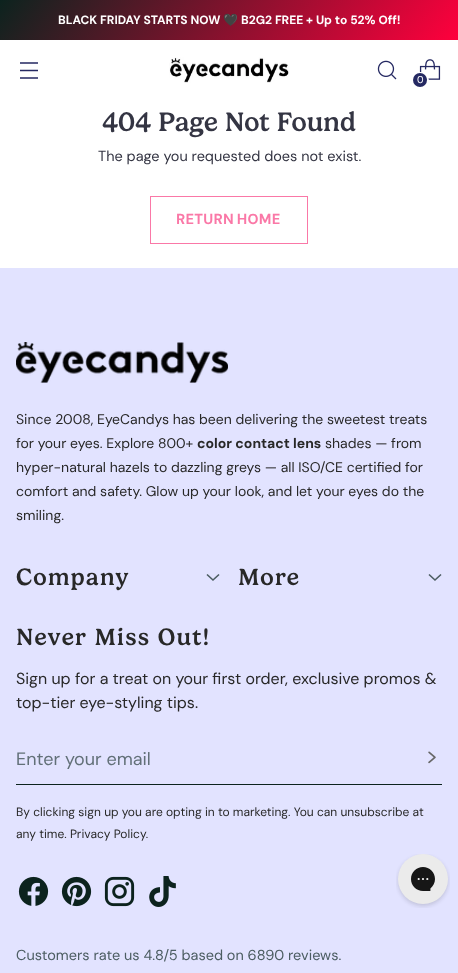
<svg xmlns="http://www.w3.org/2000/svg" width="458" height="973">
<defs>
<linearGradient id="g1" gradientUnits="userSpaceOnUse" x1="377" y1="140" x2="81" y2="-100"><stop offset="0" stop-color="#ff003d"/><stop offset="1" stop-color="#0c231e"/></linearGradient>
</defs>
<rect width="100%" height="100%" fill="#fff"/>
<rect width="458" height="40" fill="url(#g1)"/>
<text x="58" y="24" style="font-family:DM Sans;font-size:12px;font-weight:bold;fill:#fff">BLACK FRIDAY STARTS NOW</text>
<text x="223" y="24" style="font-family:Noto Color Emoji;font-size:12px;font-weight:bold;fill:#fff">🖤</text>
<text x="241" y="24" style="font-family:DM Sans;font-size:12px;font-weight:bold;fill:#fff">B2G2 FREE + Up to 52% Off!</text>
<path d="M20 70.5h18m-18-7.5h18m-18 15h18" fill="none" stroke="#252962" stroke-width="1.3"/>
<image x="169" y="57" width="120" height="26" href="media/1.png"/>
<image x="377" y="60" width="20" height="20" href="media/2.png"/>
<image x="419" y="59" width="22" height="21" href="media/3.png"/>
<circle cx="420.5" cy="80.5" r="7.5" fill="none" stroke="#fff" stroke-width="2"/>
<circle cx="420" cy="80" r="7" fill="#252962"/>
<text x="417" y="83" style="font-family:'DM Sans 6';font-size:10px;fill:#fff">0</text>
<text x="102" y="131" style="font-family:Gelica;font-size:27.25px;font-weight:500;fill:#343543">404 Page Not Found</text>
<text x="98" y="161" style="font-family:DM Sans;font-size:14.5px;fill:#343543">The page you requested does not exist.</text>
<rect x="150.5" y="196.5" width="157" height="47" fill="none" stroke="#fa78a7"/>
<text x="176" y="224" word-spacing="-1" style="font-family:'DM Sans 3';font-size:14.5px;font-weight:bold;letter-spacing:0.25px;fill:#fa78a7">RETURN HOME</text>
<rect y="268" width="458" height="705" fill="#e2e3ff"/>
<image x="16" y="342" width="212" height="41" href="media/4.png"/>
<text x="16" y="424" style="font-family:'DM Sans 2';font-size:14px;fill:#282828">Since 2008, EyeCandys has been delivering the sweetest treats</text>
<text x="16" y="448" style="font-family:'DM Sans 2';font-size:14px;fill:#282828">for your eyes. Explore 800+</text>
<text x="197" y="448" style="font-family:'DM Sans 2';font-size:14px;font-weight:bold;fill:#282828">color contact lens</text>
<text x="325" y="448" style="font-family:'DM Sans 2';font-size:14px;fill:#282828">shades — from</text>
<text x="16" y="472" style="font-family:'DM Sans 2';font-size:14px;fill:#282828">hyper-natural hazels to dazzling greys — all ISO/CE certified for</text>
<text x="16" y="496" style="font-family:'DM Sans 2';font-size:14px;fill:#282828">comfort and safety. Glow up your look, and let your eyes do the</text>
<text x="16" y="520" style="font-family:'DM Sans 2';font-size:14px;fill:#282828">smiling.</text>
<text x="16" y="585" style="font-family:Gelica;font-size:24px;font-weight:500;letter-spacing:1.25px;fill:#282828">Company</text>
<path d="M207 574.5l6 5.5l6-5.5" fill="none" stroke="#4c5d62" stroke-width="1.6"/>
<text x="238" y="585" style="font-family:Gelica;font-size:24px;font-weight:500;letter-spacing:1.25px;fill:#282828">More</text>
<path d="M429 574.5l6 5.5l6-5.5" fill="none" stroke="#4c5d62" stroke-width="1.6"/>
<text x="16" y="645" style="font-family:Gelica;font-size:24px;font-weight:500;letter-spacing:1.25px;fill:#282828">Never Miss Out!</text>
<text x="16" y="684" style="font-family:'DM Sans 3';font-size:16px;fill:#282828">Sign up for a treat on your first order, exclusive promos &amp;</text>
<text x="16" y="708" style="font-family:'DM Sans 3';font-size:16px;fill:#282828">top-tier eye-styling tips.</text>
<rect x="16" y="784" width="426" height="1" fill="#0c231e"/>
<text x="16" y="765" style="font-family:'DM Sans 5';font-size:18px;fill:#627078">Enter your email</text>
<image x="428" y="751" width="8" height="13" href="media/5.png"/>
<text x="16" y="816" style="font-family:'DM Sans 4';font-size:12px;fill:#282828">By clicking sign up you are opting in to marketing. You can unsubscribe at</text>
<text x="16" y="838" style="font-family:'DM Sans 4';font-size:12px;fill:#282828">any time. Privacy Policy.</text>
<image x="18" y="876" width="31" height="30" href="media/6.png"/>
<image x="61" y="876" width="31" height="31" href="media/7.png"/>
<image x="104" y="876" width="31" height="31" href="media/8.png"/>
<image x="149" y="876" width="27" height="31" href="media/9.png"/>
<text x="16" y="960" style="font-family:DM Sans;font-size:14.5px;fill:#4c5d62">Customers rate us 4.8/5 based on 6890 reviews.</text>
<image x="396" y="854" width="54" height="54" href="media/10.png"/>
</svg>
